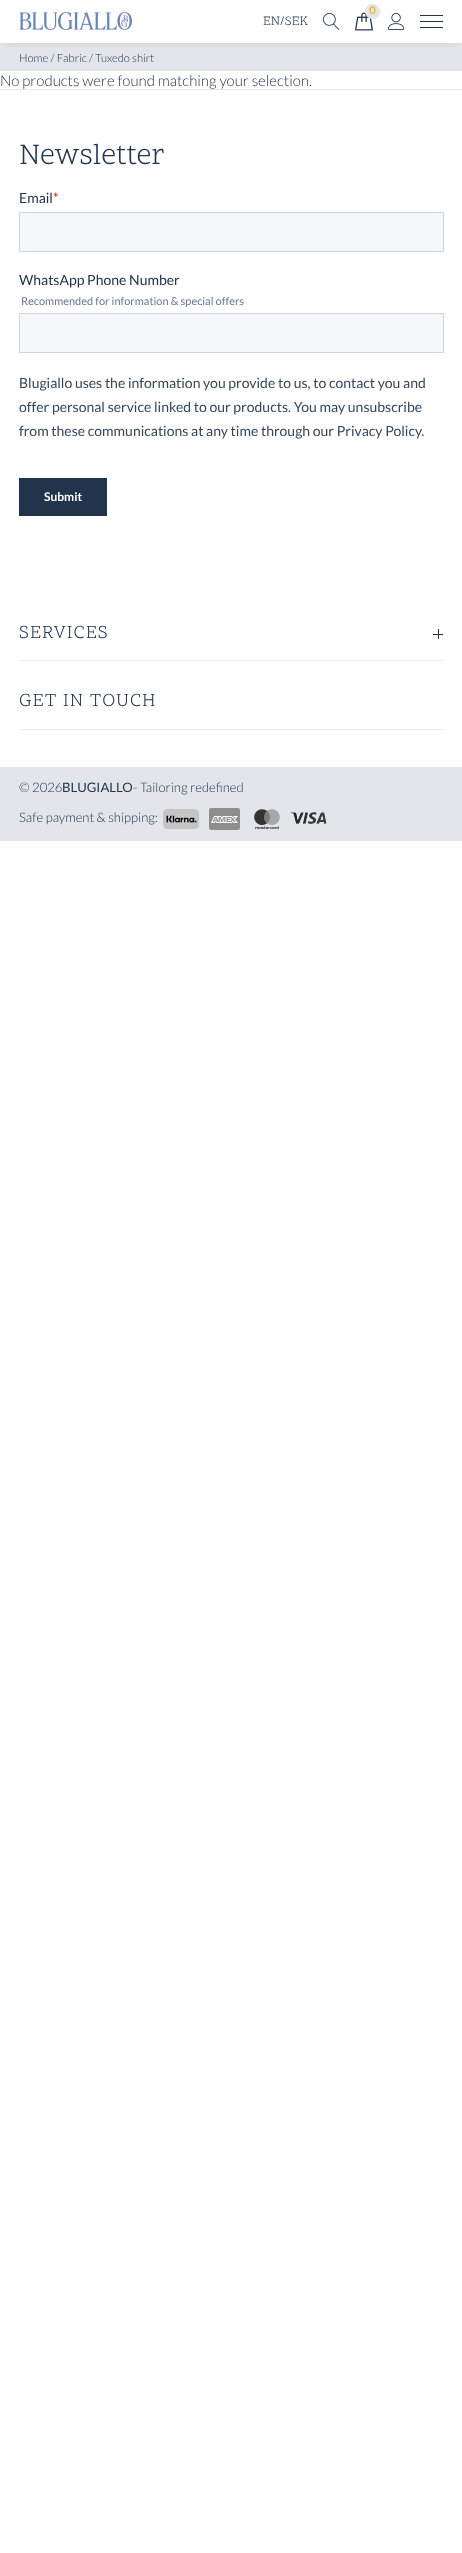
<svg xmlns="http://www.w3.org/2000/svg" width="462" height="2553">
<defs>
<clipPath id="clip1"><rect x="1" y="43" width="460" height="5"/></clipPath>
</defs>
<rect width="100%" height="100%" fill="#fff"/>
<rect y="43" width="462" height="28" fill="#e2e6ea"/>
<g clip-path="url(#clip1)">
<rect x="5" y="9" width="452" height="33" fill="#80808052" filter="blur(4px)"/>
</g>
<image x="19" y="12" width="113" height="18" href="media/1.png"/>
<image x="355" y="12" width="18" height="19" href="media/2.png"/>
<circle cx="372.5" cy="11.5" r="7.5" fill="#e2e6ea"/>
<text x="369" y="14" style="font-family:Scope One;font-size:11.25px;font-weight:bold;fill:#e2ac00">0</text>
<text x="263" y="25" style="font-family:Scope One;font-size:13.1px;fill:#21344b">EN/SEK</text>
<image x="323" y="13" width="17" height="17" href="media/3.png"/>
<image x="388" y="13" width="17" height="17" href="media/4.png"/>
<rect x="420" y="15" width="23" height="1" fill="#21344b"/>
<rect x="420" y="21" width="23" height="1" fill="#21344b"/>
<rect x="420" y="27" width="23" height="1" fill="#21344b"/>
<text x="19" y="62" style="font-family:Lato;font-size:11.25px;font-weight:300;fill:#21344b">Home / Fabric / Tuxedo shirt</text>
<text x="0" y="86" style="font-family:Lato;font-size:15px;font-weight:300;fill:#21344b">No products were found matching your selection.</text>
<rect y="89" width="462" height="1" fill="#e2e6ea"/>
<text x="19" y="164" style="font-family:Scope One;font-size:30px;fill:#21344b">Newsletter</text>
<image x="19" y="192" width="425" height="324" href="media/5.png"/>
<rect x="19" y="660" width="424" height="1" fill="#e9ecef"/>
<text x="19" y="638" style="font-family:Scope One;font-size:18.75px;letter-spacing:1px;fill:#21344b">SERVICES</text>
<rect x="433" y="634" width="10" height="1" fill="#21344b"/>
<rect x="438" y="629" width="1" height="10" fill="#21344b"/>
<rect x="19" y="729" width="424" height="1" fill="#e9ecef"/>
<text x="19" y="706" style="font-family:Scope One;font-size:18.75px;letter-spacing:1px;fill:#21344b">GET IN TOUCH</text>
<rect y="767" width="462" height="74" fill="#e2e6ea"/>
<text x="19" y="792" style="font-family:Lato;font-size:13.1px;font-weight:300;fill:#21344b">© 2026</text>
<text x="62" y="792" style="font-family:Lato;font-size:13.1px;fill:#21344b">BLUGIALLO</text>
<text x="133" y="792" style="font-family:Lato;font-size:13.1px;font-weight:300;fill:#21344b">- Tailoring redefined</text>
<text x="19" y="822" style="font-family:Lato;font-size:13.1px;font-weight:300;fill:#21344b">Safe payment &amp; shipping:</text>
<image x="163" y="809" width="36" height="20" href="media/6.png"/>
<image x="209" y="808" width="31" height="22" href="media/7.png"/>
<image x="254" y="809" width="26" height="21" href="media/8.png"/>
<image x="290" y="812" width="37" height="12" href="media/9.png"/>
</svg>
